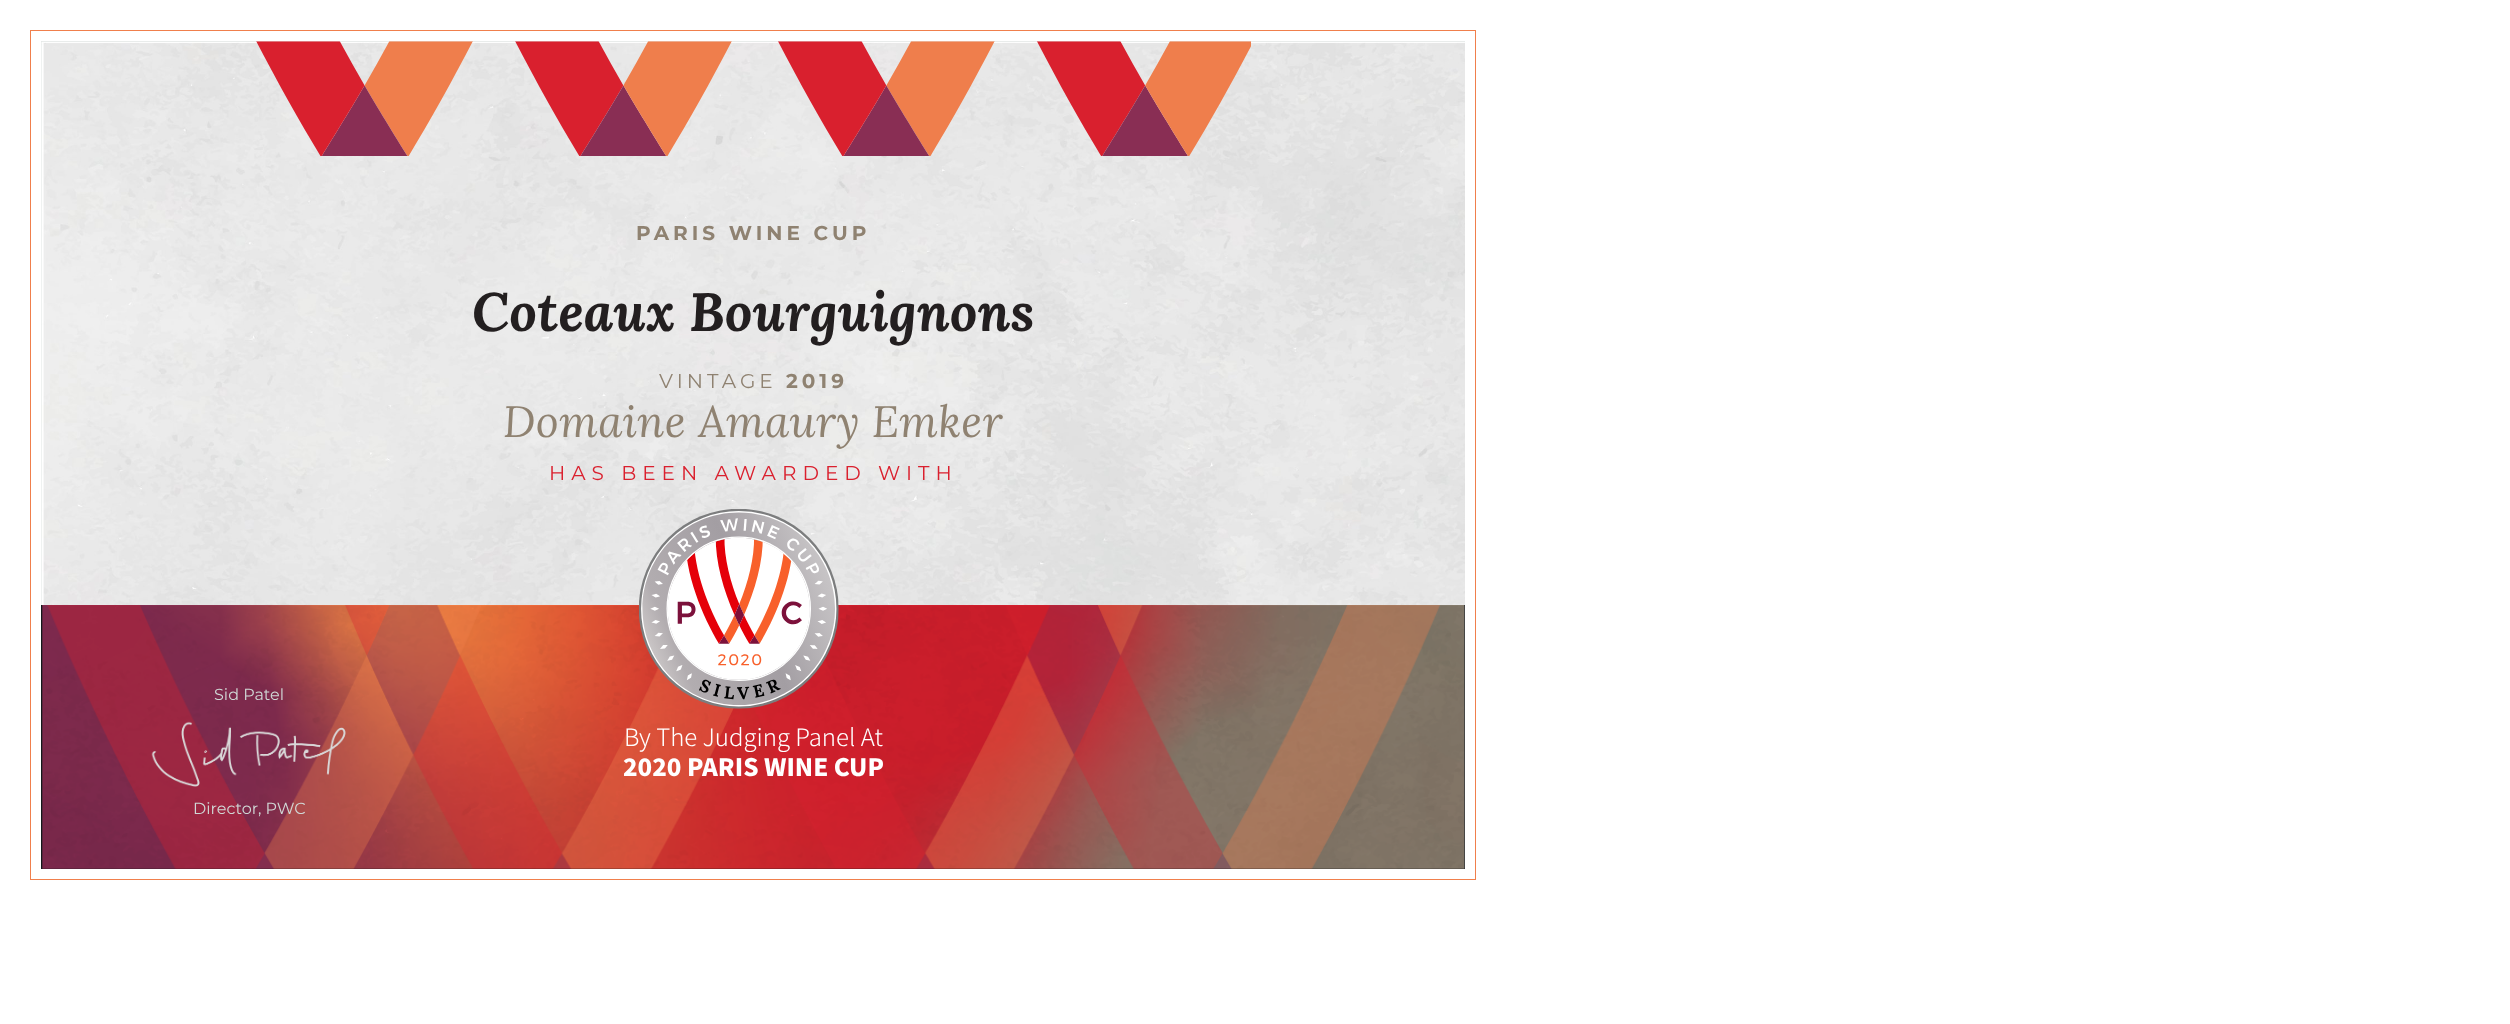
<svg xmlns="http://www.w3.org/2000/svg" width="2510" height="1024">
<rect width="100%" height="100%" fill="#fff"/>
<rect x="30.5" y="30.5" width="1445" height="849" fill="none" stroke="#f07f4c"/>
<rect x="41" y="41" width="1424" height="564" fill="#e0e5e4"/>
<image x="41" y="41" width="1424" height="564" href="media/1.png"/>
<image x="256" y="41" width="995" height="115" href="media/2.png"/>
<text x="636" y="240" style="font-family:Montserrat;font-size:20px;font-weight:bold;letter-spacing:4px;fill:#8f8271">PARIS WINE CUP</text>
<text x="472" y="331" style="font-family:Lora;font-size:54px;font-weight:bold;font-style:italic;fill:#231f20">Coteaux Bourguignons</text>
<text x="659" y="388" style="font-family:Montserrat;font-size:20px;letter-spacing:4px;fill:#8f8271">VINTAGE</text>
<text x="786" y="388" style="font-family:Montserrat;font-size:20px;font-weight:bold;letter-spacing:4px;fill:#8f8271">2019</text>
<text x="503" y="437" style="font-family:Lora;font-size:44px;font-style:italic;letter-spacing:0.4px;fill:#8f8271">Domaine Amaury Emker</text>
<text x="549" y="480" style="font-family:Montserrat;font-size:20px;letter-spacing:6px;fill:#da202e">HAS BEEN AWARDED WITH</text>
<rect x="41" y="605" width="1424" height="264" fill="#14191c"/>
<image x="42" y="605" width="1423" height="264" href="media/4.png"/>
<image x="639" y="509" width="200" height="200" href="media/3.png"/>
<text x="214" y="700" style="font-family:Montserrat;font-size:16px;fill:#d0d8d6">Sid Patel</text>
<image x="151" y="721" width="195" height="66" href="media/5.png"/>
<text x="193" y="814" style="font-family:Montserrat;font-size:16px;fill:#d0d8d6">Director, PWC</text>
<text x="624" y="746" style="font-family:Noto Sans SC;font-size:24px;font-weight:300;fill:#fff">By The Judging Panel At</text>
<text x="623" y="776" style="font-family:Noto Sans SC;font-size:24px;font-weight:900;fill:#fff">2020 PARIS WINE CUP</text>
</svg>
